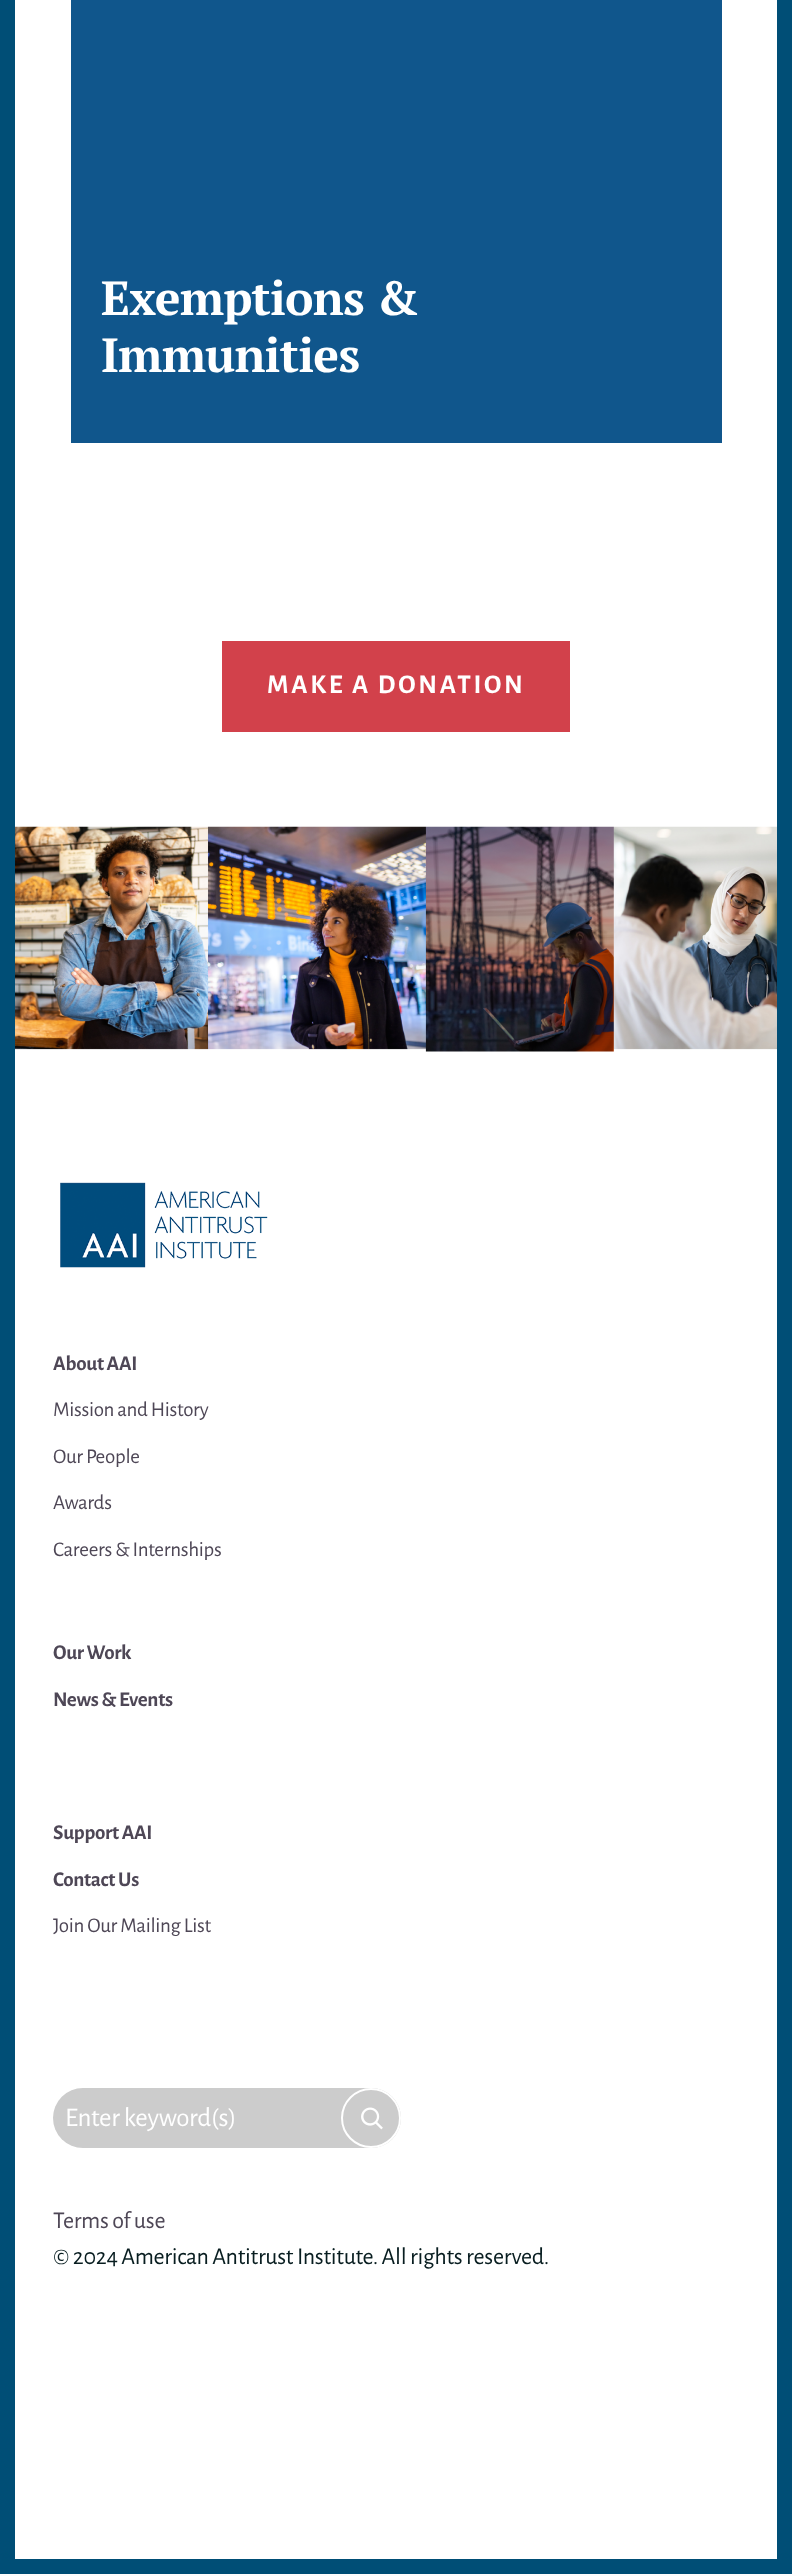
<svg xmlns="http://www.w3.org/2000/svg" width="792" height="2574">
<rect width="100%" height="100%" fill="#004e76"/>
<rect x="15" width="762" height="2559" fill="#fff"/>
<rect x="71" width="651" height="443" fill="#10568c"/>
<text x="101" y="315" style="font-family:PT Serif;font-size:48px;font-weight:bold;letter-spacing:-0.75px;fill:#fff">Exemptions &amp;</text>
<text x="101" y="372" style="font-family:PT Serif;font-size:48px;font-weight:bold;letter-spacing:-0.75px;fill:#fff">Immunities</text>
<rect x="222" y="641" width="348" height="91" fill="#d2414b"/>
<text x="267" y="693" style="font-family:Alegreya Sans;font-size:27px;font-weight:bold;letter-spacing:2.75px;fill:#fff">MAKE A DONATION</text>
<image x="15" y="826" width="762" height="226" href="media/1.png"/>
<image x="60" y="1182" width="208" height="86" href="media/2.png"/>
<text x="53" y="1370" style="font-family:Alegreya Sans;font-size:21px;font-weight:bold;letter-spacing:-0.3px;fill:#4e4756">About AAI</text>
<text x="53" y="1416" style="font-family:Alegreya Sans;font-size:21px;letter-spacing:-0.3px;fill:#4e4756">Mission and History</text>
<text x="53" y="1463" style="font-family:Alegreya Sans;font-size:21px;letter-spacing:-0.3px;fill:#4e4756">Our People</text>
<text x="53" y="1509" style="font-family:Alegreya Sans;font-size:21px;letter-spacing:-0.3px;fill:#4e4756">Awards</text>
<text x="53" y="1556" style="font-family:Alegreya Sans;font-size:21px;letter-spacing:-0.3px;fill:#4e4756">Careers &amp; Internships</text>
<text x="53" y="1659" style="font-family:Alegreya Sans;font-size:21px;font-weight:bold;letter-spacing:-0.3px;fill:#4e4756">Our Work</text>
<text x="53" y="1706" style="font-family:Alegreya Sans;font-size:21px;font-weight:bold;letter-spacing:-0.3px;fill:#4e4756">News &amp; Events</text>
<text x="53" y="1839" style="font-family:Alegreya Sans;font-size:21px;font-weight:bold;letter-spacing:-0.3px;fill:#4e4756">Support AAI</text>
<text x="53" y="1886" style="font-family:Alegreya Sans;font-size:21px;font-weight:bold;letter-spacing:-0.3px;fill:#4e4756">Contact Us</text>
<text x="53" y="1932" style="font-family:Alegreya Sans;font-size:21px;letter-spacing:-0.3px;fill:#4e4756">Join Our Mailing List</text>
<rect x="53" y="2088" width="348" height="60" rx="30" fill="#ccc"/>
<text x="65" y="2126" style="font-family:Alegreya Sans;font-size:27px;letter-spacing:-0.3px;fill:#fff">Enter keyword(s)</text>
<circle cx="371" cy="2118" r="29" fill="#ccc" stroke="#fff" stroke-width="2"/>
<image x="361" y="2107" width="22" height="23" href="media/3.png"/>
<text x="53" y="2228" style="font-family:Alegreya Sans;font-size:24px;letter-spacing:-0.3px;fill:#4e4756">Terms of use</text>
<text x="53" y="2264" style="font-family:Alegreya Sans;font-size:24px;letter-spacing:-0.3px;fill:#081d20">© 2024 American Antitrust Institute. All rights reserved.</text>
</svg>
